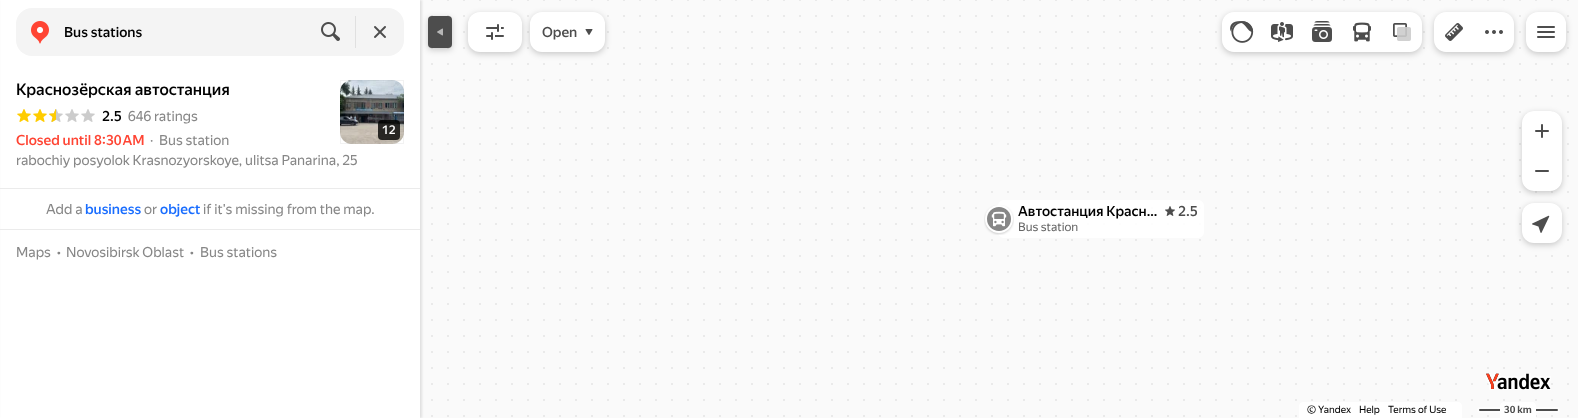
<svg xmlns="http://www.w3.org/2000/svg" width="1578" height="418">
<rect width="100%" height="100%" fill="#fff"/>
<image x="420" y="0" width="1158" height="418" href="media/1.png"/>
<rect x="2" width="420" height="418" fill="#0000001a" filter="blur(1px)"/>
<rect x="428" y="18" width="24" height="32" rx="4" fill="#00000033" filter="blur(3px)"/>
<rect x="1" width="419" height="418" fill="#fff"/>
<rect x="16" y="8" width="388" height="48" rx="16" fill="#f4f4f4"/>
<image x="31" y="21" width="18" height="23" href="media/2.png"/>
<text x="64" y="37" style="font-family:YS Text;font-size:14px;font-weight:500;fill:#000">Bus stations</text>
<image x="321" y="22" width="19" height="19" href="media/3.png"/>
<rect x="355" y="16" width="1" height="32" fill="#e0e0e0"/>
<image x="374" y="26" width="12" height="12" href="media/4.png"/>
<rect x="468" y="14" width="54" height="40" rx="12" fill="#00000033" filter="blur(3px)"/>
<rect x="468" y="12" width="54" height="40" rx="12" fill="#fff"/>
<image x="486" y="24" width="18" height="16" href="media/5.png"/>
<rect x="530" y="14" width="75" height="40" rx="12" fill="#00000033" filter="blur(3px)"/>
<rect x="530" y="12" width="75" height="40" rx="12" fill="#fff"/>
<text x="542" y="37" style="font-family:YS Text;font-size:14px;font-weight:500;fill:#4d4d4d">Open</text>
<image x="585" y="29" width="8" height="6" href="media/6.png"/>
<rect x="1222" y="14" width="200" height="40" rx="12" fill="#00000033" filter="blur(3px)"/>
<path d="M1234 12h28v40h-28c-6.5 0-12-5.5-12-12v-16c0-6.5 5.5-12 12-12z" fill="#fff"/>
<image x="1230" y="21" width="24" height="22" href="media/7.png"/>
<rect x="1262" y="12" width="120" height="40" fill="#fff"/>
<image x="1271" y="22" width="22" height="20" href="media/8.png"/>
<path d="M1382 12h28c6.5 0 12 5.5 12 12v16c0 6.5-5.5 12-12 12h-28z" fill="#fff"/>
<image x="1393" y="23" width="18" height="18" href="media/9.png"/>
<image x="1312" y="21" width="20" height="21" href="media/10.png"/>
<image x="1353" y="22" width="18" height="20" href="media/11.png"/>
<rect x="1434" y="14" width="80" height="40" rx="12" fill="#00000033" filter="blur(3px)"/>
<path d="M1446 12h28v40h-28c-6.5 0-12-5.5-12-12v-16c0-6.5 5.5-12 12-12z" fill="#fff"/>
<image x="1445" y="23" width="18" height="18" href="media/12.png"/>
<path d="M1474 12h28c6.5 0 12 5.5 12 12v16c0 6.5-5.5 12-12 12h-28z" fill="#fff"/>
<image x="1485" y="30" width="18" height="4" href="media/13.png"/>
<rect x="1526" y="14" width="40" height="40" rx="12" fill="#00000033" filter="blur(3px)"/>
<rect x="1526" y="12" width="40" height="40" rx="12" fill="#fff"/>
<image x="1537" y="26" width="18" height="12" href="media/14.png"/>
<rect x="1522" y="113" width="40" height="80" rx="12" fill="#00000033" filter="blur(3px)"/>
<path d="M1534 111h16c6.5 0 12 5.5 12 12v28h-40v-28c0-6.5 5.5-12 12-12z" fill="#fff"/>
<image x="1535" y="124" width="14" height="14" href="media/15.png"/>
<path d="M1522 151h40v28c0 6.5-5.5 12-12 12h-16c-6.5 0-12-5.5-12-12z" fill="#fff"/>
<image x="1535" y="170" width="14" height="2" href="media/16.png"/>
<rect x="1522" y="205" width="40" height="40" rx="12" fill="#00000033" filter="blur(3px)"/>
<rect x="1522" y="203" width="40" height="40" rx="12" fill="#fff"/>
<image x="1532" y="215" width="18" height="18" href="media/17.png"/>
<rect x="428" y="16" width="24" height="32" rx="4" fill="#4d4d4d"/>
<image x="437" y="28" width="6" height="8" href="media/18.png"/>
<rect y="188" width="420" height="1" fill="#ebebeb"/>
<text x="16" y="95" style="font-family:YS Text;font-size:16px;font-weight:500;fill:#000">Краснозёрская автостанция</text>
<image x="17" y="109" width="14" height="13" href="media/19.png"/>
<image x="33" y="109" width="14" height="13" href="media/19.png"/>
<image x="49" y="109" width="14" height="13" href="media/20.png"/>
<image x="65" y="109" width="14" height="13" href="media/21.png"/>
<image x="81" y="109" width="14" height="13" href="media/21.png"/>
<text x="102" y="121" style="font-family:YS Text;font-size:14px;font-weight:500;fill:#000">2.5</text>
<text x="128" y="121" style="font-family:YS Text;font-size:14px;fill:#878787">646 ratings</text>
<image x="340" y="80" width="64" height="64" href="media/22.png"/>
<rect x="340.5" y="80.5" width="63" height="63" fill="none" stroke="#0000000d"/>
<rect x="378" y="120" width="22" height="20" rx="4" fill="#000000cc"/>
<text x="382" y="134" style="font-family:YS Text;font-size:12px;font-weight:500;fill:#fff">12</text>
<text x="16" y="145" style="font-family:YS Text;font-size:14px;font-weight:500;fill:#f43">Closed until 8:30 AM</text>
<text x="150" y="145" style="font-family:YS Text;font-size:14px;fill:#878787">·</text>
<text x="159" y="145" style="font-family:YS Text;font-size:14px;fill:#878787">Bus station</text>
<text x="16" y="165" style="font-family:YS Text;font-size:14px;fill:#878787">rabochiy posyolok Krasnozyorskoye, ulitsa Panarina, 25</text>
<text x="46" y="214" style="font-family:YS Text;font-size:14px;fill:#878787">Add a</text>
<text x="85" y="214" style="font-family:YS Text;font-size:14px;font-weight:500;fill:#196dff">business</text>
<text x="144" y="214" style="font-family:YS Text;font-size:14px;fill:#878787">or</text>
<text x="160" y="214" style="font-family:YS Text;font-size:14px;font-weight:500;fill:#196dff">object</text>
<text x="203" y="214" style="font-family:YS Text;font-size:14px;fill:#878787">if it's missing from the map.</text>
<rect y="229" width="420" height="1" fill="#ebebeb"/>
<text x="16" y="257" style="font-family:YS Text;font-size:14px;fill:#878787">Maps</text>
<text x="57" y="257" style="font-family:YS Text;font-size:14px;fill:#878787">•</text>
<text x="66" y="257" style="font-family:YS Text;font-size:14px;fill:#878787">Novosibirsk Oblast</text>
<text x="190" y="257" style="font-family:YS Text;font-size:14px;fill:#878787">•</text>
<text x="200" y="257" style="font-family:YS Text;font-size:14px;fill:#878787">Bus stations</text>
<image x="1486" y="373" width="65" height="17" href="media/23.png"/>
<path d="M1303 402h155c2 0 4 2 4 4v12h-163v-12c0-2 2-4 4-4z" fill="#fff"/>
<text x="1307" y="413" style="font-family:YS Text;font-size:10px;fill:#000">© Yandex</text>
<text x="1359" y="413" style="font-family:YS Text;font-size:10px;fill:#000">Help</text>
<text x="1388" y="413" style="font-family:YS Text;font-size:10px;fill:#000">Terms of Use</text>
<rect x="1477" y="407" width="83" height="6" rx="3" fill="#fdfdfd"/>
<rect x="1479" y="409" width="79" height="2" rx="1" fill="#4d4d4d"/>
<path d="M1504 402h28c2 0 4 2 4 4v12h-36v-12c0-2 2-4 4-4z" fill="#fff"/>
<text x="1504" y="413" style="font-family:YS Text;font-size:10px;font-weight:bold;fill:#4d4d4d">30 km</text>
<path d="M1004 200h12v38h-12c-3.5 0-6-2.5-6-6v-26c0-3.5 2.5-6 6-6z" fill="#ffffffe6"/>
<image x="984" y="205" width="30" height="30" href="media/24.png"/>
<image x="991" y="211" width="16" height="16" href="media/25.png"/>
<path d="M1016 200h182c3.5 0 6 2.5 6 6v26c0 3.5-2.5 6-6 6h-182z" fill="#ffffffe6"/>
<text x="1018" y="216" style="font-family:YS Text;font-size:14px;font-weight:500;fill:#000">Автостанция Красн…</text>
<image x="1165" y="206" width="10" height="10" href="media/26.png"/>
<text x="1178" y="216" style="font-family:YS Text;font-size:14px;font-weight:500;fill:#4d4d4d">2.5</text>
<text x="1018" y="231" style="font-family:YS Text;font-size:12px;fill:#666">Bus station</text>
</svg>
